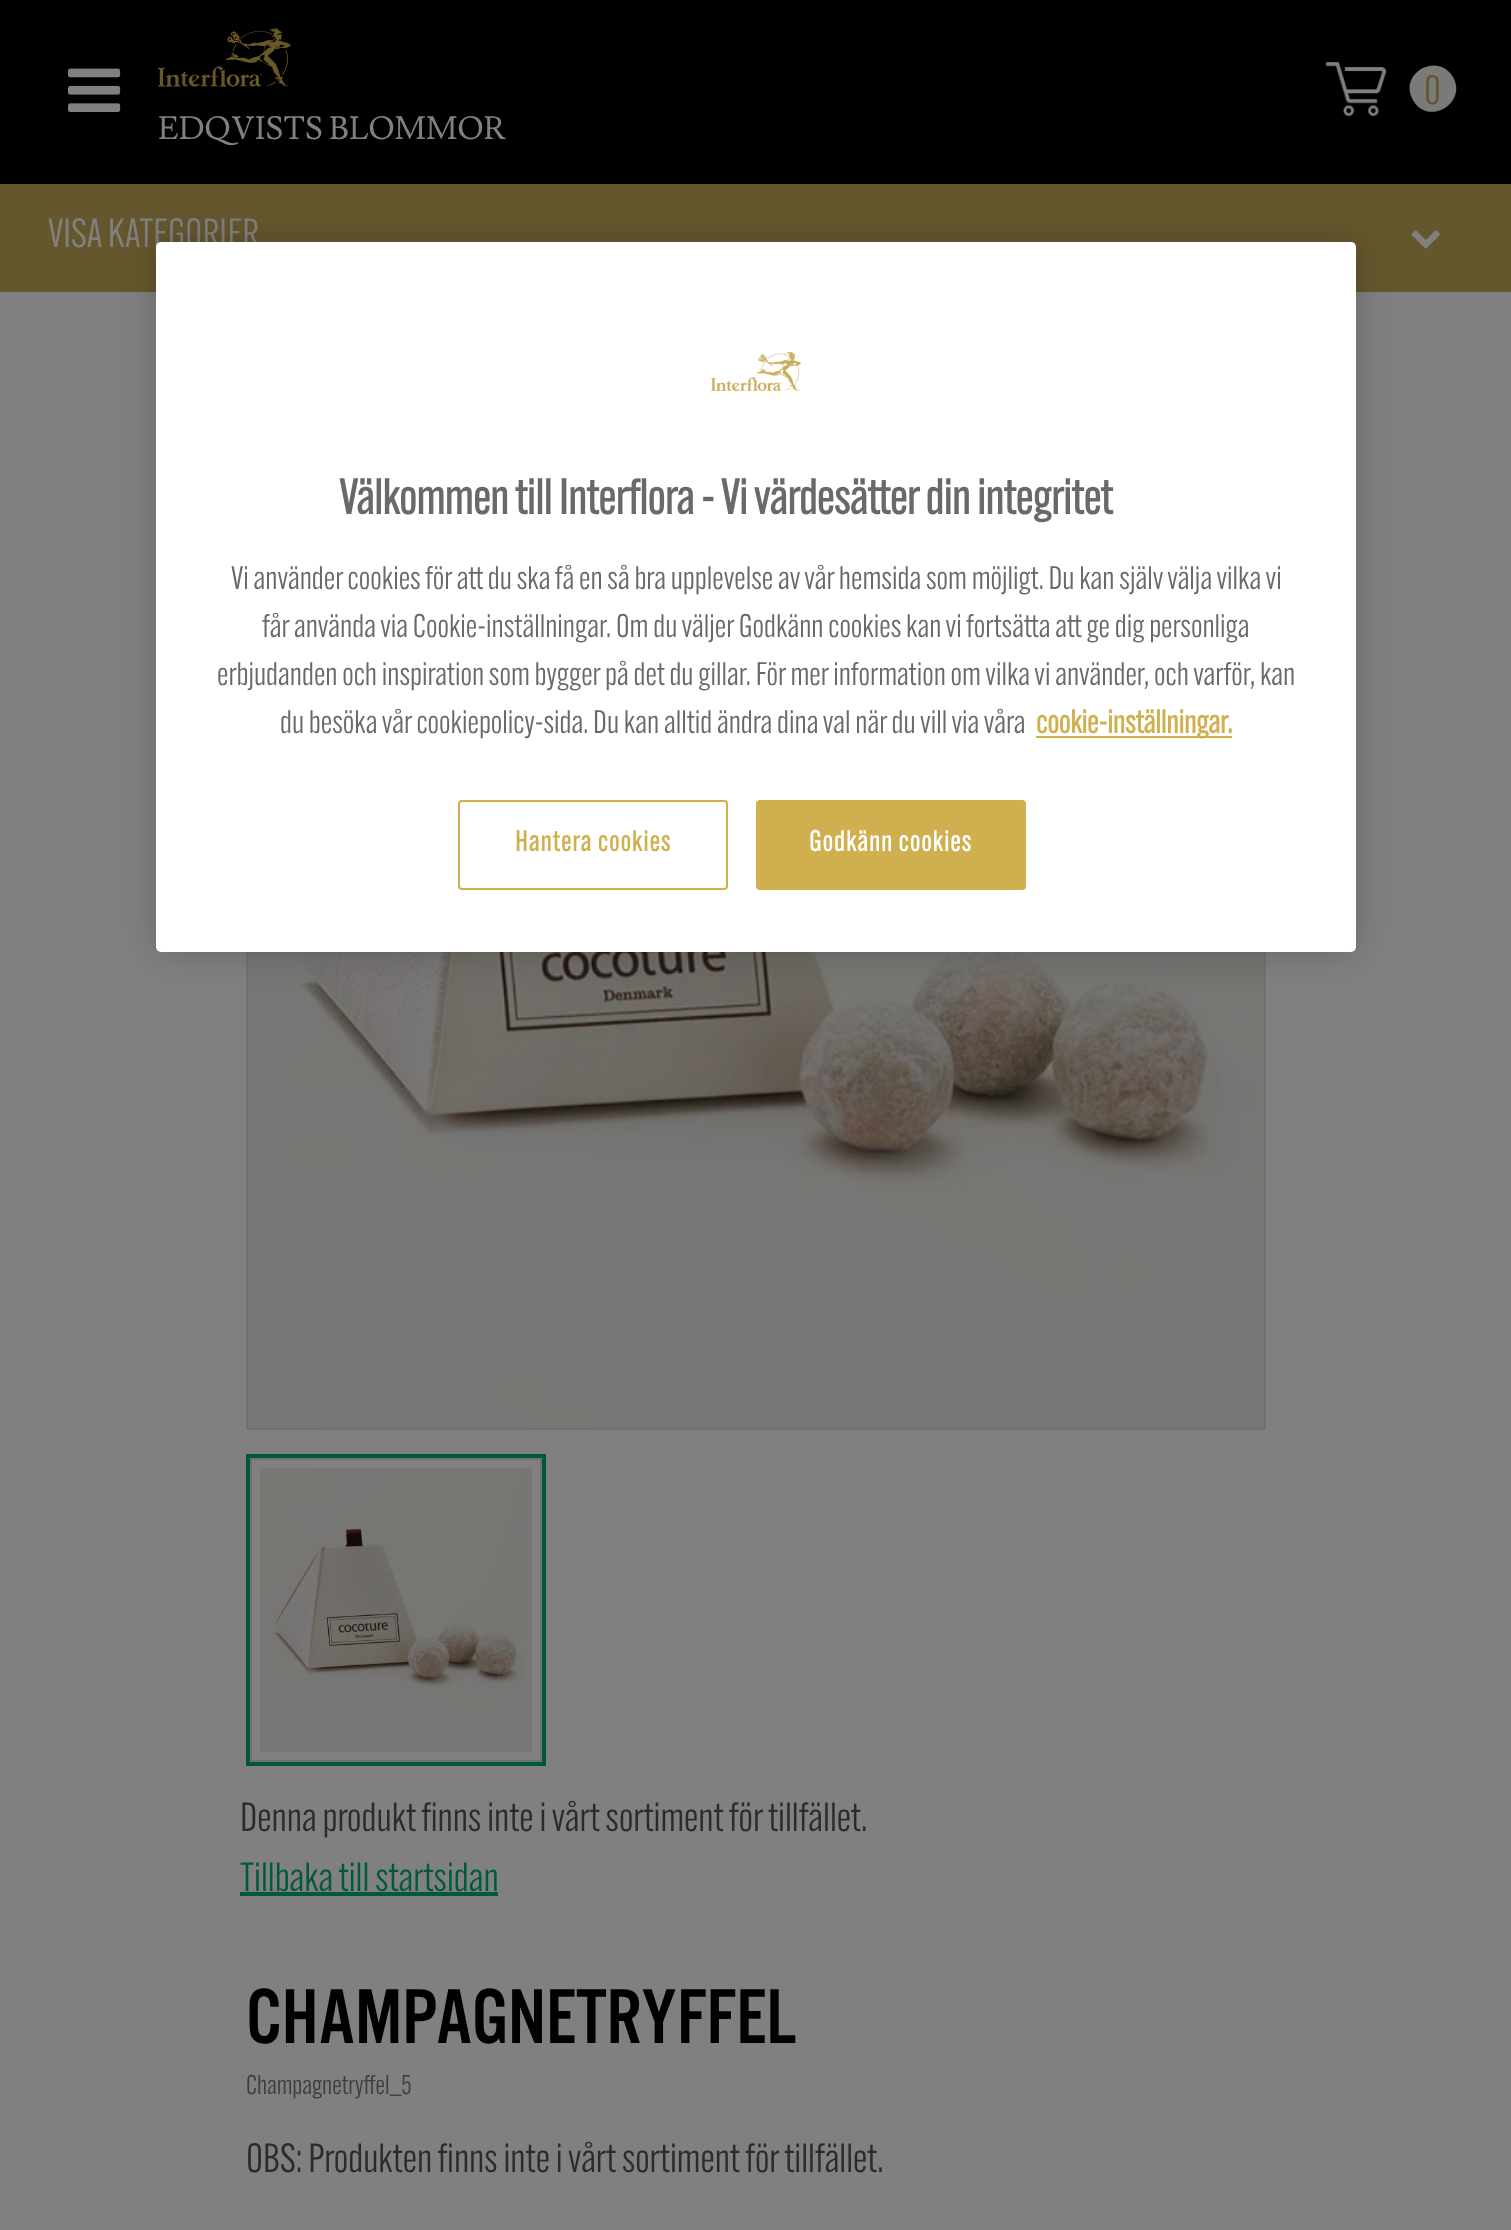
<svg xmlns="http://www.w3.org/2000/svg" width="1511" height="2230">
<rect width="100%" height="100%" fill="#808080"/>
<rect width="1511" height="184" fill="#000"/>
<image x="68" y="68" width="53" height="44" href="media/1.png"/>
<image x="1325" y="62" width="62" height="55" href="media/2.png"/>
<path d="M1453 77c15 26-25 50-40 23c-15-26 24-49 40-23z" fill="#7a7a79"/>
<text x="1424" y="104" style="font-family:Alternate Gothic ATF;font-size:40px;fill:#65572d">0</text>
<image x="158" y="28" width="133" height="59" href="media/3.png"/>
<text x="158" y="139" style="font-family:Lusitana;font-size:32px;fill:#808080">EDQVISTS BLOMMOR</text>
<rect y="184" width="1511" height="108" fill="#65572d"/>
<text x="48" y="247" style="font-family:Alternate Gothic ATF;font-size:40px;fill:#808080">VISA KATEGORIER</text>
<image x="1411" y="230" width="29" height="19" href="media/4.png"/>
<rect x="247" y="365" width="1018" height="1064" fill="none" stroke="#6f7173" stroke-width="2"/>
<image x="248" y="952" width="1016" height="476" href="media/5.png"/>
<rect x="248" y="1456" width="296" height="308" fill="none" stroke="#00593d" stroke-width="4"/>
<rect x="251" y="1459" width="290" height="302" fill="none" stroke="#6f7173" stroke-width="2"/>
<image x="260" y="1468" width="272" height="284" href="media/6.png"/>
<text x="240" y="1831" style="font-family:Alternate Gothic ATF;font-size:40px;fill:#2b2b2b">Denna produkt finns inte i vårt sortiment för tillfället.</text>
<text x="240" y="1891" style="font-family:Alternate Gothic ATF;font-size:40px;fill:#00593d">Tillbaka till startsidan</text>
<rect x="240" y="1892" width="258" height="4" fill="#00593d"/>
<text x="246" y="2043" style="font-family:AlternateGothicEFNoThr;font-size:80.75px;fill:#000">CHAMPAGNETRYFFEL</text>
<text x="246" y="2094" style="font-family:Alternate Gothic ATF;font-size:26.5px;fill:#3d3e3b">Champagnetryffel_5</text>
<text x="246" y="2172" style="font-family:Alternate Gothic ATF;font-size:40px;fill:#2b2b2b">OBS: Produkten finns inte i vårt sortiment för tillfället.</text>
<rect x="156" y="242" width="1200" height="710" rx="5" fill="#00000033" filter="blur(18px)"/>
<rect x="156" y="242" width="1200" height="710" rx="5" fill="#fff"/>
<image x="710" y="351" width="92" height="40" href="media/7.png"/>
<text x="339" y="514" style="font-family:Alternate Gothic ATF;font-size:48px;font-weight:bold;fill:#696969">Välkommen till Interflora - Vi värdesätter din integritet</text>
<text x="231" y="589" style="font-family:Alternate Gothic ATF;font-size:32px;fill:#696969">Vi använder cookies för att du ska få en så bra upplevelse av vår hemsida som möjligt. Du kan själv välja vilka vi</text>
<text x="262" y="637" style="font-family:Alternate Gothic ATF;font-size:32px;fill:#696969">får använda via Cookie-inställningar. Om du väljer Godkänn cookies kan vi fortsätta att ge dig personliga</text>
<text x="217" y="685" style="font-family:Alternate Gothic ATF;font-size:32px;fill:#696969">erbjudanden och inspiration som bygger på det du gillar. För mer information om vilka vi använder, och varför, kan</text>
<text x="280" y="733" style="font-family:Alternate Gothic ATF;font-size:32px;fill:#696969">du besöka vår cookiepolicy-sida. Du kan alltid ändra dina val när du vill via våra</text>
<rect x="1036" y="736" width="196" height="2" fill="#d0b04e"/>
<text x="1036" y="733" style="font-family:Alternate Gothic ATF;font-size:32px;font-weight:bold;fill:#d0b04e">cookie-inställningar.</text>
<rect x="459" y="801" width="268" height="88" rx="3" fill="none" stroke="#d0b04e" stroke-width="2"/>
<text x="515" y="851" style="font-family:Alternate Gothic ATF;font-size:28px;font-weight:bold;letter-spacing:1.4px;fill:#d0b04e">Hantera cookies</text>
<rect x="757" y="801" width="268" height="88" rx="3" fill="#d0b04e" stroke="#d0b04e" stroke-width="2"/>
<text x="809" y="851" style="font-family:Alternate Gothic ATF;font-size:28px;font-weight:bold;letter-spacing:1.4px;fill:#fff">Godkänn cookies</text>
</svg>
